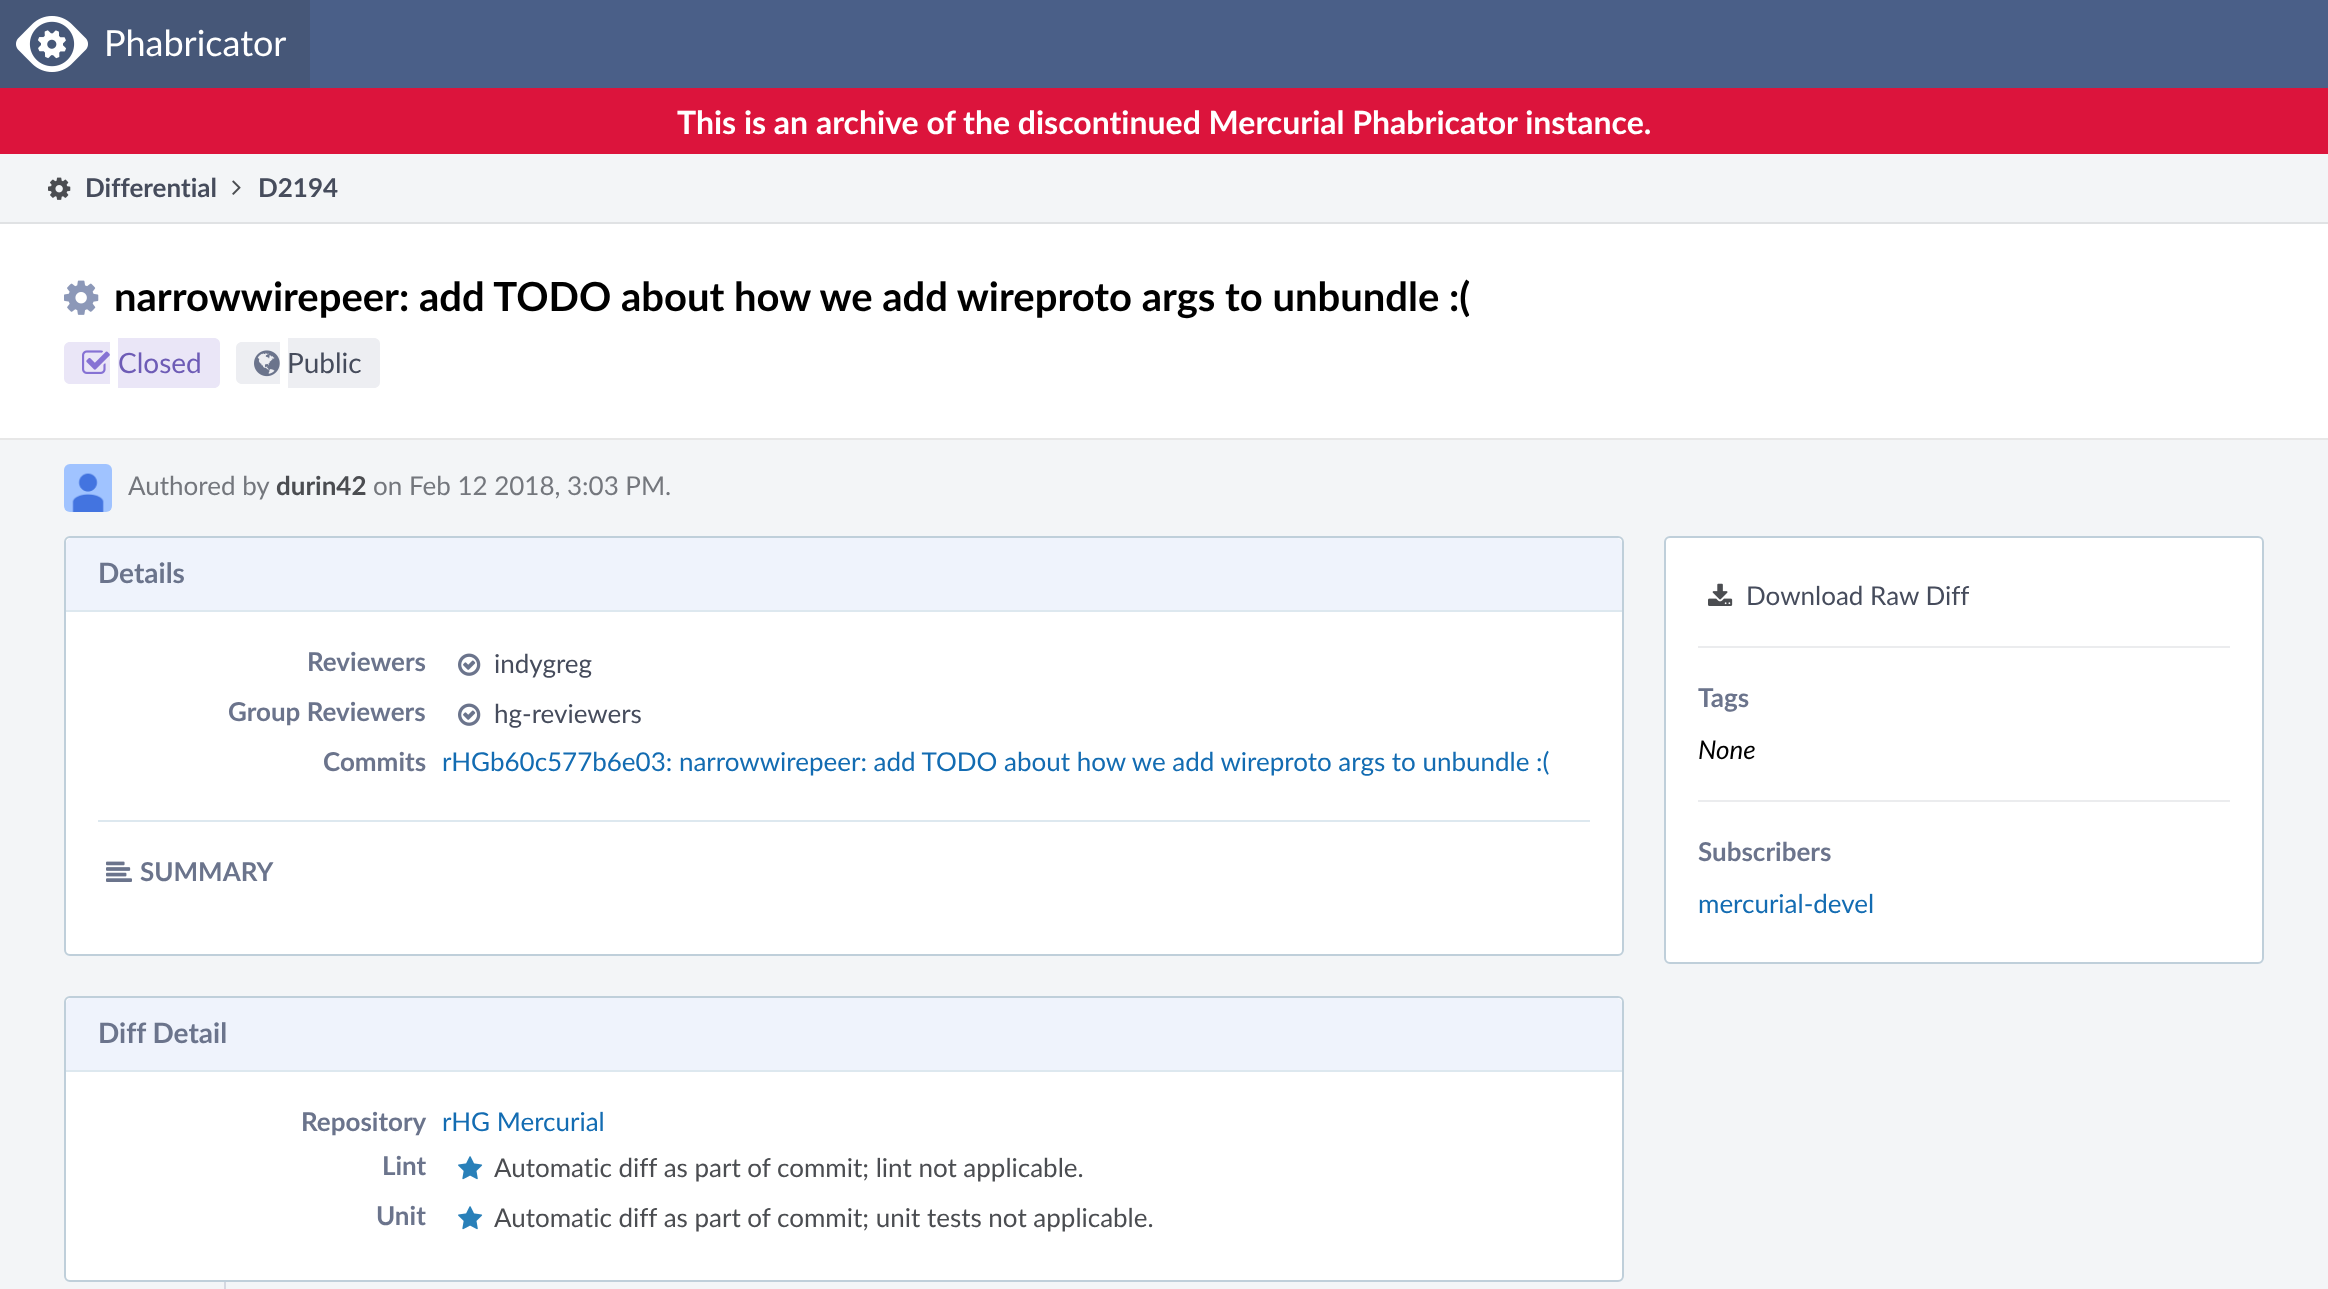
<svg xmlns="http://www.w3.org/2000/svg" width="2328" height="1289">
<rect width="100%" height="100%" fill="#f3f5f7"/>
<rect x="310" width="2018" height="88" fill="#4a5f88"/>
<rect width="310" height="88" fill="#465778"/>
<image x="16" y="16" width="72" height="56" href="media/1.png"/>
<text x="104" y="56" style="font-family:Lato;font-size:36px;fill:#fff">Phabricator</text>
<rect y="88" width="2328" height="66" fill="#dc143c"/>
<text x="677" y="134" style="font-family:Lato;font-size:32px;font-weight:bold;fill:#fff">This is an archive of the discontinued Mercurial Phabricator instance.</text>
<rect y="222" width="2328" height="2" fill="#e0e2e4"/>
<image x="48" y="177" width="23" height="23" href="media/2.png"/>
<text x="85" y="197" style="font-family:Lato;font-size:26px;font-weight:bold;fill:#464c5c">Differential</text>
<image x="232" y="180" width="9" height="15" href="media/3.png"/>
<text x="258" y="197" style="font-family:Lato;font-size:26px;font-weight:bold;fill:#464c5c">D2194</text>
<rect y="224" width="2328" height="214" fill="#fff"/>
<rect y="438" width="2328" height="2" fill="#e7e7e7"/>
<image x="64" y="280" width="35" height="35" href="media/4.png"/>
<text x="114" y="311" style="font-family:Lato;font-size:40px;font-weight:bold;fill:#000">narrowwirepeer: add TODO about how we add wireproto args to unbundle :(</text>
<path d="M70 342h40v42h-40c-3.5 0-6-2.5-6-6v-30c0-3.5 2.5-6 6-6z" fill="#eae6f7"/>
<path d="M118 338h96c3.5 0 6 2.5 6 6v38c0 3.5-2.5 6-6 6h-96z" fill="#eae6f7"/>
<image x="82" y="350" width="28" height="24" href="media/5.png"/>
<text x="118" y="373" style="font-family:Lato;font-size:28px;fill:#6e5cb6">Closed</text>
<path d="M242 342h38v42h-38c-3.5 0-6-2.5-6-6v-30c0-3.5 2.5-6 6-6z" fill="#edeef2"/>
<path d="M288 338h86c3.5 0 6 2.5 6 6v38c0 3.5-2.5 6-6 6h-86z" fill="#edeef2"/>
<image x="254" y="350" width="26" height="27" href="media/6.png"/>
<text x="287" y="373" style="font-family:Lato;font-size:28px;fill:#464c5c">Public</text>
<image x="64" y="464" width="48" height="48" href="media/7.png"/>
<text x="128" y="495" style="font-family:Lato;font-size:26px;fill:#74777d">Authored by</text>
<text x="276" y="495" style="font-family:Lato;font-size:26px;font-weight:bold;fill:#4b4d51">durin42</text>
<text x="373" y="495" style="font-family:Lato;font-size:26px;fill:#74777d">on Feb 12 2018, 3:03 PM.</text>
<rect x="65" y="537" width="1558" height="418" rx="5" fill="#fff" stroke="#bfcfda" stroke-width="2"/>
<path d="M72 538h1544c3.5 0 6 2.5 6 6v68h-1556v-68c0-3.5 2.5-6 6-6z" fill="#eff3fc"/>
<rect x="66" y="610" width="1556" height="2" fill="#dde8ef"/>
<text x="98" y="583" style="font-family:Lato;font-size:28px;font-weight:bold;fill:#6b748c">Details</text>
<text x="307" y="671" style="font-family:Lato;font-size:26px;font-weight:bold;fill:#6b748c">Reviewers</text>
<image x="458" y="653" width="23" height="23" href="media/8.png"/>
<text x="494" y="673" style="font-family:Lato;font-size:26px;fill:#464c5c">indygreg</text>
<text x="228" y="721" style="font-family:Lato;font-size:26px;font-weight:bold;fill:#6b748c">Group Reviewers</text>
<image x="458" y="703" width="23" height="23" href="media/8.png"/>
<text x="494" y="723" style="font-family:Lato;font-size:26px;fill:#464c5c">hg-reviewers</text>
<text x="323" y="771" style="font-family:Lato;font-size:26px;font-weight:bold;fill:#6b748c">Commits</text>
<text x="442" y="771" style="font-family:Lato;font-size:26px;fill:#136cb2">rHGb60c577b6e03: narrowwirepeer: add TODO about how we add wireproto args to unbundle :(</text>
<rect x="98" y="820" width="1492" height="2" fill="#dde8ef"/>
<image x="106" y="861" width="26" height="21" href="media/9.png"/>
<text x="140" y="881" style="font-family:Lato;font-size:26px;font-weight:bold;fill:#6b748c">SUMMARY</text>
<rect x="65" y="997" width="1558" height="284" rx="5" fill="#fff" stroke="#bfcfda" stroke-width="2"/>
<path d="M72 998h1544c3.5 0 6 2.5 6 6v68h-1556v-68c0-3.5 2.5-6 6-6z" fill="#eff3fc"/>
<rect x="66" y="1070" width="1556" height="2" fill="#dde8ef"/>
<text x="98" y="1043" style="font-family:Lato;font-size:28px;font-weight:bold;fill:#6b748c">Diff Detail</text>
<text x="301" y="1131" style="font-family:Lato;font-size:26px;font-weight:bold;fill:#6b748c">Repository</text>
<text x="442" y="1131" style="font-family:Lato;font-size:26px;fill:#136cb2">rHG Mercurial</text>
<text x="382" y="1175" style="font-family:Lato;font-size:26px;font-weight:bold;fill:#6b748c">Lint</text>
<image x="458" y="1156" width="25" height="24" href="media/10.png"/>
<text x="494" y="1177" style="font-family:Lato;font-size:26px;fill:#4b4d51">Automatic diff as part of commit; lint not applicable.</text>
<text x="376" y="1225" style="font-family:Lato;font-size:26px;font-weight:bold;fill:#6b748c">Unit</text>
<image x="458" y="1206" width="25" height="24" href="media/10.png"/>
<text x="494" y="1227" style="font-family:Lato;font-size:26px;fill:#4b4d51">Automatic diff as part of commit; unit tests not applicable.</text>
<rect x="224" y="1282" width="2" height="7" fill="#d5d8e1"/>
<rect x="1665" y="537" width="598" height="426" rx="5" fill="#fff" stroke="#bfcfda" stroke-width="2"/>
<image x="1708" y="583" width="25" height="23" href="media/11.png"/>
<text x="1746" y="605" style="font-family:Lato;font-size:26px;fill:#464c5c">Download Raw Diff</text>
<rect x="1698" y="646" width="532" height="2" fill="#ebecee"/>
<text x="1698" y="707" style="font-family:Lato;font-size:26px;font-weight:bold;fill:#6b748c">Tags</text>
<text x="1698" y="759" style="font-family:Lato;font-size:26px;font-style:italic;fill:#000">None</text>
<rect x="1698" y="800" width="532" height="2" fill="#ebecee"/>
<text x="1698" y="861" style="font-family:Lato;font-size:26px;font-weight:bold;fill:#6b748c">Subscribers</text>
<text x="1698" y="913" style="font-family:Lato;font-size:26px;fill:#136cb2">mercurial-devel</text>
</svg>
